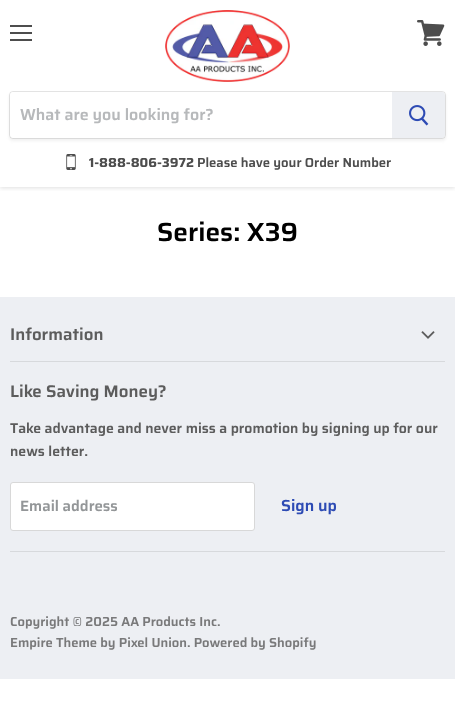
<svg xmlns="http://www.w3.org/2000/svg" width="455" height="714">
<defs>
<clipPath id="clip1"><rect x="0" y="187" width="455" height="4"/></clipPath>
</defs>
<rect width="100%" height="100%" fill="#fff"/>
<g clip-path="url(#clip1)">
<rect y="1" width="455" height="187" fill="#7f7f7f40" filter="blur(2px)"/>
</g>
<rect x="10" y="25" width="22" height="2" fill="#4d4d4d"/>
<rect x="10" y="32" width="22" height="2" fill="#4d4d4d"/>
<rect x="10" y="39" width="22" height="2" fill="#4d4d4d"/>
<image x="417" y="20" width="28" height="26" href="media/1.png"/>
<image x="165" y="10" width="125" height="72" href="media/2.png"/>
<rect x="9" y="93" width="437" height="48" rx="4" fill="#7f7f7f1c" filter="blur(1.5px)"/>
<rect x="9.5" y="91.5" width="436" height="47" rx="3.5" fill="none" stroke="#7f7f7f33"/>
<path d="M13 92h379v46h-379c-1.5 0-3-1.5-3-3v-40c0-1.5 1.5-3 3-3z" fill="#fff"/>
<text x="20" y="120" style="font-family:Saira;font-size:16px;font-weight:600;fill:#b7b9bb">What are you looking for?</text>
<path d="M392 92h50c1.5 0 3 1.5 3 3v40c0 1.5-1.5 3-3 3h-50z" fill="#edeff3"/>
<image x="409" y="105" width="20" height="21" href="media/3.png"/>
<image x="66" y="154" width="10" height="16" href="media/4.png"/>
<text x="89" y="167" style="font-family:Saira;font-size:13.1px;font-weight:bold;fill:#4d4d4d">1-888-806-3972</text>
<text x="197" y="167" style="font-family:Saira;font-size:13.1px;font-weight:600;fill:#4d4d4d">Please have your Order Number</text>
<text x="157" y="241" style="font-family:Saira;font-size:26.25px;font-weight:600;fill:#000">Series: X39</text>
<rect y="297" width="455" height="382" fill="#edeff3"/>
<rect x="10" y="361" width="435" height="1" fill="#d7d9dc"/>
<text x="10" y="340" style="font-family:Saira;font-size:16.9px;font-weight:600;fill:#5c5c5c">Information</text>
<image x="421" y="331" width="14" height="8" href="media/5.png"/>
<rect x="10" y="551" width="435" height="1" fill="#d7d9dc"/>
<text x="10" y="397" style="font-family:Saira;font-size:16.9px;font-weight:600;fill:#5c5c5c">Like Saving Money?</text>
<text x="10" y="433" style="font-family:Saira;font-size:14.05px;font-weight:600;fill:#5c5c5c">Take advantage and never miss a promotion by signing up for our</text>
<text x="10" y="456" style="font-family:Saira;font-size:14.05px;font-weight:600;fill:#5c5c5c">news letter.</text>
<rect x="10.5" y="482.5" width="244" height="48" rx="2.5" fill="#fff" stroke="#d8d8d8"/>
<text x="20" y="511" style="font-family:Saira;font-size:15px;font-weight:600;fill:#939698">Email address</text>
<text x="281" y="511" style="font-family:Saira;font-size:16px;font-weight:600;fill:#2d4bb4">Sign up</text>
<text x="10" y="626" style="font-family:Saira;font-size:13px;font-weight:600;fill:#79797a">Copyright © 2025 AA Products Inc.</text>
<text x="10" y="647" style="font-family:Saira;font-size:13px;font-weight:600;fill:#79797a">Empire Theme by Pixel Union. Powered by Shopify</text>
</svg>
